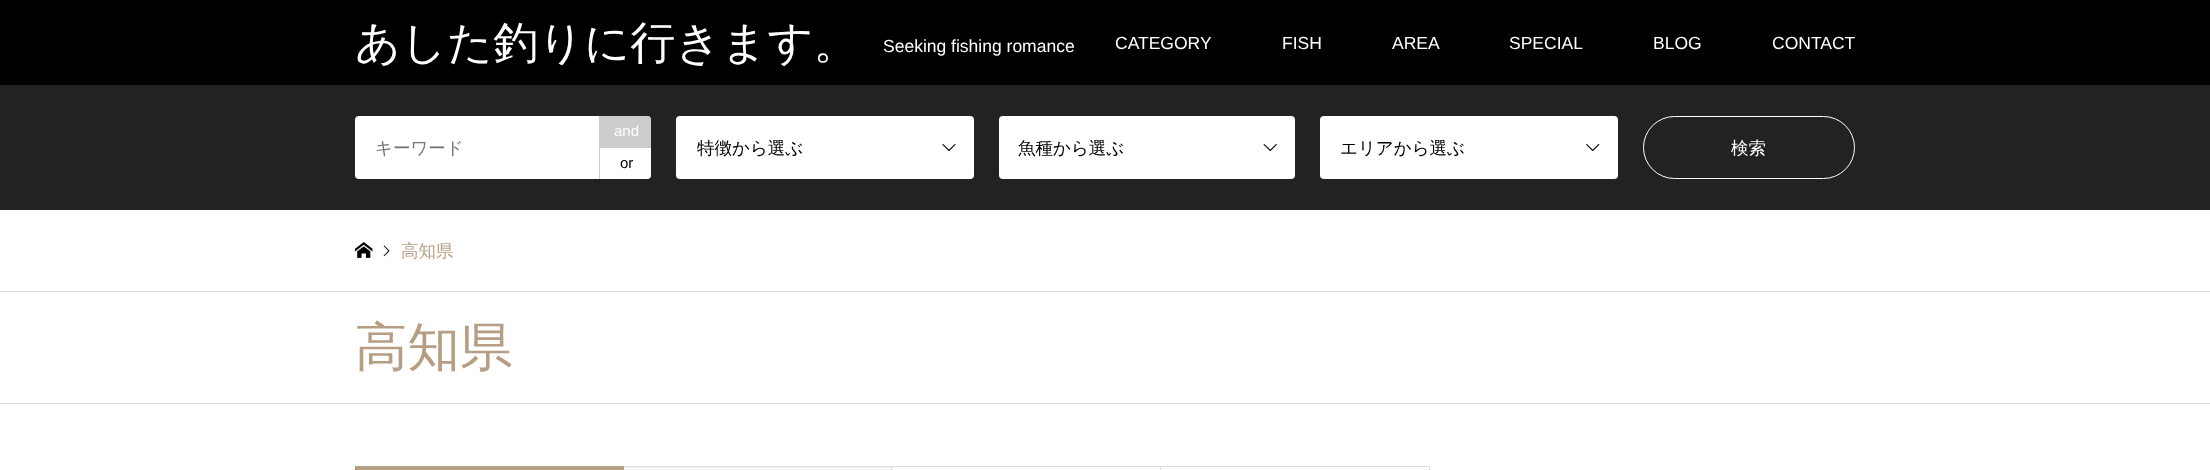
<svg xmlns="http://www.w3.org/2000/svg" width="2210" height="470">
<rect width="100%" height="100%" fill="#fff"/>
<rect width="2210" height="85" fill="#000"/>
<text x="355" y="58" style="font-family:WenQuanYi Zen Hei;font-size:45px;font-weight:500;fill:#fff">あした釣りに行きます。</text>
<text x="883" y="52" style="font-family:Liberation Sans;font-size:17.5px;fill:#fff">Seeking fishing romance</text>
<text x="1115" y="49" style="font-family:Liberation Sans;font-size:17.5px;fill:#fff">CATEGORY</text>
<text x="1282" y="49" style="font-family:Liberation Sans;font-size:17.5px;fill:#fff">FISH</text>
<text x="1392" y="49" style="font-family:Liberation Sans;font-size:17.5px;fill:#fff">AREA</text>
<text x="1509" y="49" style="font-family:Liberation Sans;font-size:17.5px;fill:#fff">SPECIAL</text>
<text x="1653" y="49" style="font-family:Liberation Sans;font-size:17.5px;fill:#fff">BLOG</text>
<text x="1772" y="49" style="font-family:Liberation Sans;font-size:17.5px;fill:#fff">CONTACT</text>
<rect y="85" width="2210" height="125" fill="#222"/>
<rect x="355" y="116" width="296" height="63" rx="4" fill="#fff"/>
<text x="375" y="154" style="font-family:WenQuanYi Zen Hei;font-size:17.5px;font-weight:500;fill:#757575">キーワード</text>
<path d="M599 116h48c2 0 4 2 4 4v28h-52z" fill="#ccc"/>
<text x="614" y="136" style="font-family:Liberation Sans;font-size:15px;fill:#fff">and</text>
<path d="M599 148h52v27c0 2-2 4-4 4h-48z" fill="#fff"/>
<rect x="599" y="148" width="1" height="31" fill="#ccc"/>
<text x="620" y="168" style="font-family:Liberation Sans;font-size:15px;fill:#000">or</text>
<rect x="676" y="116" width="298" height="63" rx="4" fill="#fff"/>
<text x="697" y="154" style="font-family:WenQuanYi Zen Hei;font-size:17.5px;font-weight:500;fill:#000">特徴から選ぶ</text>
<image x="942" y="144" width="14" height="7" href="media/1.png"/>
<rect x="999" y="116" width="296" height="63" rx="4" fill="#fff"/>
<text x="1018" y="154" style="font-family:WenQuanYi Zen Hei;font-size:17.5px;font-weight:500;fill:#000">魚種から選ぶ</text>
<image x="1263" y="144" width="14" height="7" href="media/2.png"/>
<rect x="1320" y="116" width="298" height="63" rx="4" fill="#fff"/>
<text x="1340" y="154" style="font-family:WenQuanYi Zen Hei;font-size:17.5px;font-weight:500;fill:#000">エリアから選ぶ</text>
<image x="1586" y="144" width="14" height="7" href="media/3.png"/>
<rect x="1643.5" y="116.5" width="211" height="62" rx="31" fill="none" stroke="#fff"/>
<text x="1731" y="154" style="font-family:WenQuanYi Zen Hei;font-size:17.5px;font-weight:500;fill:#fff">検索</text>
<rect y="291" width="2210" height="1" fill="#ddd"/>
<image x="355" y="242" width="18" height="16" href="media/4.png"/>
<image x="383" y="245" width="7" height="12" href="media/5.png"/>
<text x="401" y="257" style="font-family:WenQuanYi Zen Hei;font-size:17.5px;font-weight:500;fill:#b69e84">高知県</text>
<rect y="403" width="2210" height="1" fill="#ddd"/>
<text x="355" y="365" style="font-family:WenQuanYi Zen Hei;font-size:52.5px;font-weight:500;fill:#b69e84">高知県</text>
<rect x="355" y="466" width="269" height="4" fill="#b69e84"/>
<rect x="624" y="467" width="269" height="3" fill="#f7f7f7"/>
<rect x="624" y="466" width="806" height="1" fill="#ddd"/>
<rect x="891" y="466" width="1" height="4" fill="#ddd"/>
<rect x="1160" y="466" width="1" height="4" fill="#ddd"/>
<rect x="1429" y="466" width="1" height="4" fill="#ddd"/>
</svg>
